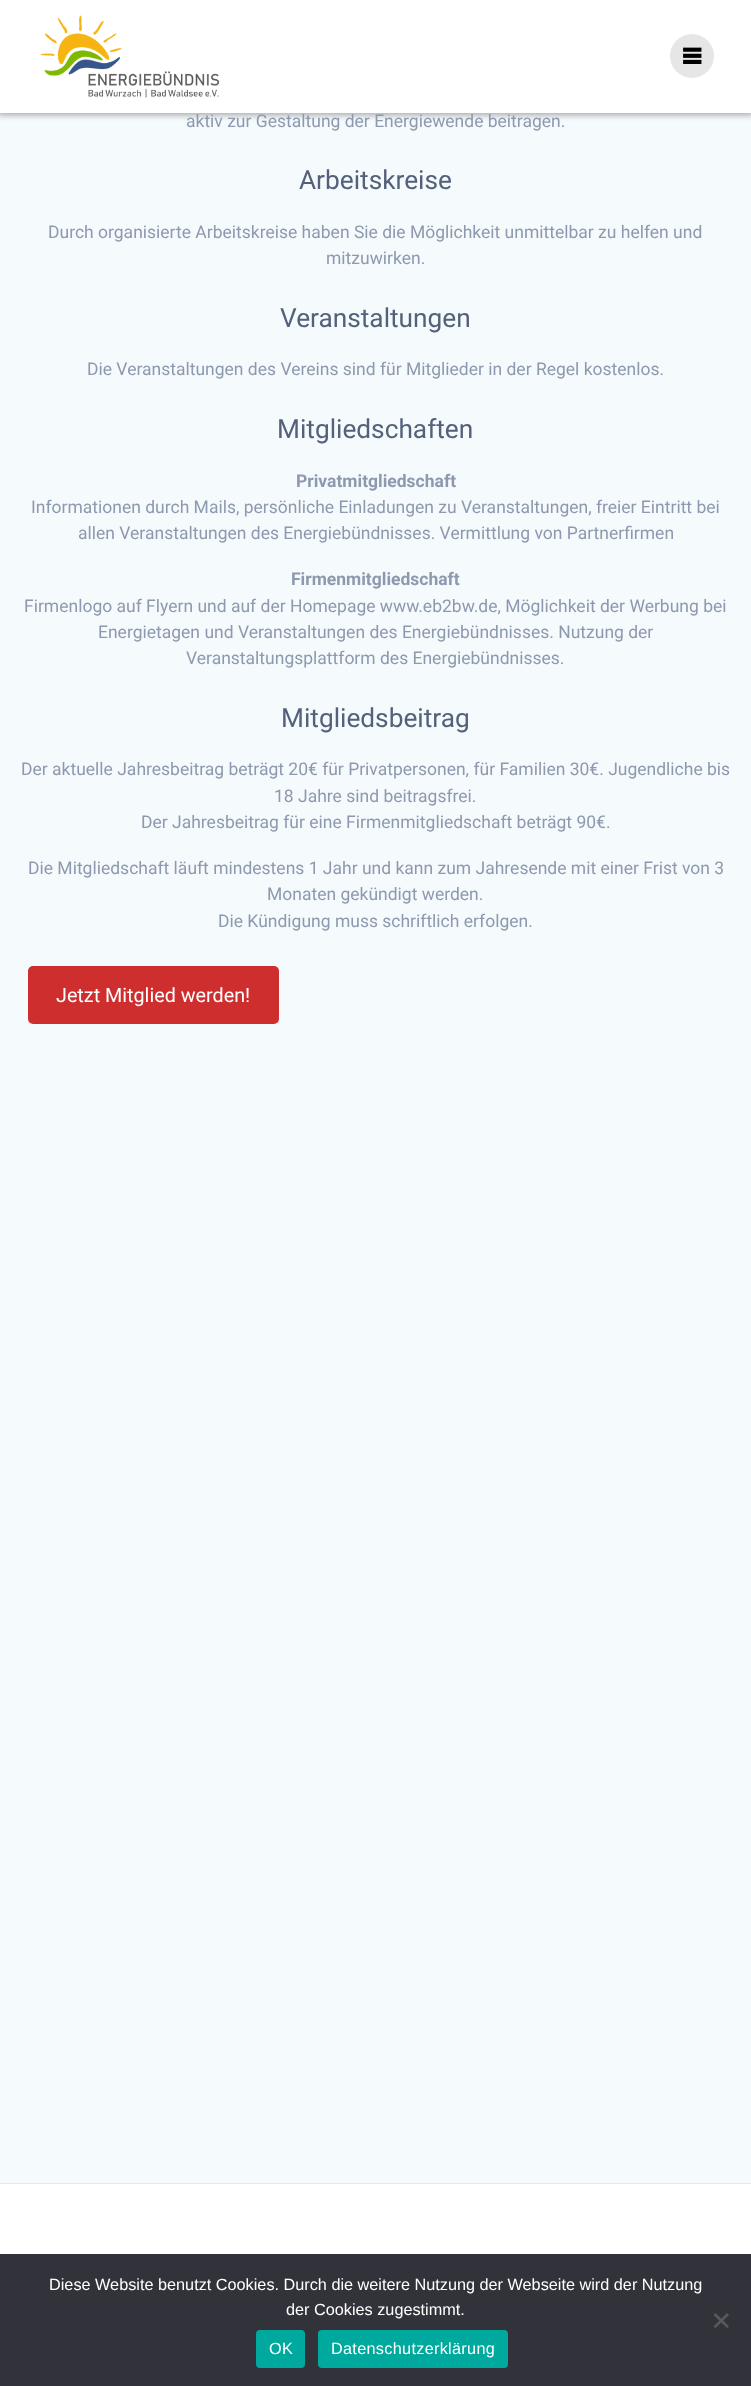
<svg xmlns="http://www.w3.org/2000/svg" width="751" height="2386">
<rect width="100%" height="100%" fill="#fff"/>
<rect y="113" width="751" height="2070" fill="#f5fafd"/>
<rect x="-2" y="-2" width="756" height="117" fill="#00000054" filter="blur(3px)"/>
<rect width="751" height="113" fill="#fff"/>
<image x="40" y="15" width="180" height="83" href="media/1.png"/>
<circle cx="692" cy="56" r="22" fill="#e6e6e6"/>
<image x="683" y="47" width="19" height="17" href="media/2.png"/>
<text x="186" y="127" style="font-family:Roboto;font-size:17.5px;fill:#8d99ae">aktiv zur Gestaltung der Energiewende beitragen.</text>
<text x="299" y="189" style="font-family:Roboto;font-size:26.25px;fill:#54617a">Arbeitskreise</text>
<text x="48" y="238" style="font-family:Roboto;font-size:17.5px;fill:#8d99ae">Durch organisierte Arbeitskreise haben Sie die Möglichkeit unmittelbar zu helfen und</text>
<text x="326" y="264" style="font-family:Roboto;font-size:17.5px;fill:#8d99ae">mitzuwirken.</text>
<text x="280" y="327" style="font-family:Roboto;font-size:26.25px;fill:#54617a">Veranstaltungen</text>
<text x="87" y="375" style="font-family:Roboto;font-size:17.5px;fill:#8d99ae">Die Veranstaltungen des Vereins sind für Mitglieder in der Regel kostenlos.</text>
<text x="277" y="438" style="font-family:Roboto;font-size:26.25px;fill:#54617a">Mitgliedschaften</text>
<text x="296" y="487" style="font-family:Roboto;font-size:17.5px;font-weight:bold;fill:#8d99ae">Privatmitgliedschaft</text>
<text x="31" y="513" style="font-family:Roboto;font-size:17.5px;fill:#8d99ae">Informationen durch Mails, persönliche Einladungen zu Veranstaltungen, freier Eintritt bei</text>
<text x="78" y="539" style="font-family:Roboto;font-size:17.5px;fill:#8d99ae">allen Veranstaltungen des Energiebündnisses. Vermittlung von Partnerfirmen</text>
<text x="291" y="585" style="font-family:Roboto;font-size:17.5px;font-weight:bold;fill:#8d99ae">Firmenmitgliedschaft</text>
<text x="24" y="612" style="font-family:Roboto;font-size:17.5px;fill:#8d99ae">Firmenlogo auf Flyern und auf der Homepage www.eb2bw.de, Möglichkeit der Werbung bei</text>
<text x="98" y="638" style="font-family:Roboto;font-size:17.5px;fill:#8d99ae">Energietagen und Veranstaltungen des Energiebündnisses. Nutzung der</text>
<text x="186" y="664" style="font-family:Roboto;font-size:17.5px;fill:#8d99ae">Veranstaltungsplattform des Energiebündnisses.</text>
<text x="281" y="727" style="font-family:Roboto;font-size:26.25px;fill:#54617a">Mitgliedsbeitrag</text>
<text x="21" y="775" style="font-family:Roboto;font-size:17.5px;fill:#8d99ae">Der aktuelle Jahresbeitrag beträgt 20€ für Privatpersonen, für Familien 30€. Jugendliche bis</text>
<text x="274" y="802" style="font-family:Roboto;font-size:17.5px;fill:#8d99ae">18 Jahre sind beitragsfrei.</text>
<text x="141" y="828" style="font-family:Roboto;font-size:17.5px;fill:#8d99ae">Der Jahresbeitrag für eine Firmenmitgliedschaft beträgt 90€.</text>
<text x="28" y="874" style="font-family:Roboto;font-size:17.5px;fill:#8d99ae">Die Mitgliedschaft läuft mindestens 1 Jahr und kann zum Jahresende mit einer Frist von 3</text>
<text x="267" y="900" style="font-family:Roboto;font-size:17.5px;fill:#8d99ae">Monaten gekündigt werden.</text>
<text x="218" y="927" style="font-family:Roboto;font-size:17.5px;fill:#8d99ae">Die Kündigung muss schriftlich erfolgen.</text>
<rect x="28" y="966" width="251" height="58" rx="5" fill="#cf2e2e"/>
<text x="56" y="1002" style="font-family:Roboto;font-size:19.75px;fill:#fff">Jetzt Mitglied werden!</text>
<rect y="2183" width="751" height="1" fill="#e8e8e8"/>
<rect y="2254" width="751" height="132" fill="#32323a"/>
<text x="49" y="2290" style="font-family:Liberation Sans;font-size:16.25px;fill:#fff">Diese Website benutzt Cookies. Durch die weitere Nutzung der Webseite wird der Nutzung</text>
<text x="286" y="2315" style="font-family:Liberation Sans;font-size:16.25px;fill:#fff">der Cookies zugestimmt.</text>
<path d="M727 2313l2 2l-13.5 13l-2-1.5z" fill="#59595d"/>
<path d="M713.5 2315l2-2l13.5 13.5l-2 1.5z" fill="#59595d"/>
<rect x="256" y="2330" width="49" height="38" rx="4" fill="#00a99d"/>
<text x="269" y="2354" style="font-family:Liberation Sans;font-size:16.25px;letter-spacing:0.3px;fill:#fff">OK</text>
<rect x="318" y="2330" width="190" height="38" rx="4" fill="#00a99d"/>
<text x="331" y="2354" style="font-family:Liberation Sans;font-size:16.25px;letter-spacing:0.3px;fill:#fff">Datenschutzerklärung</text>
</svg>
